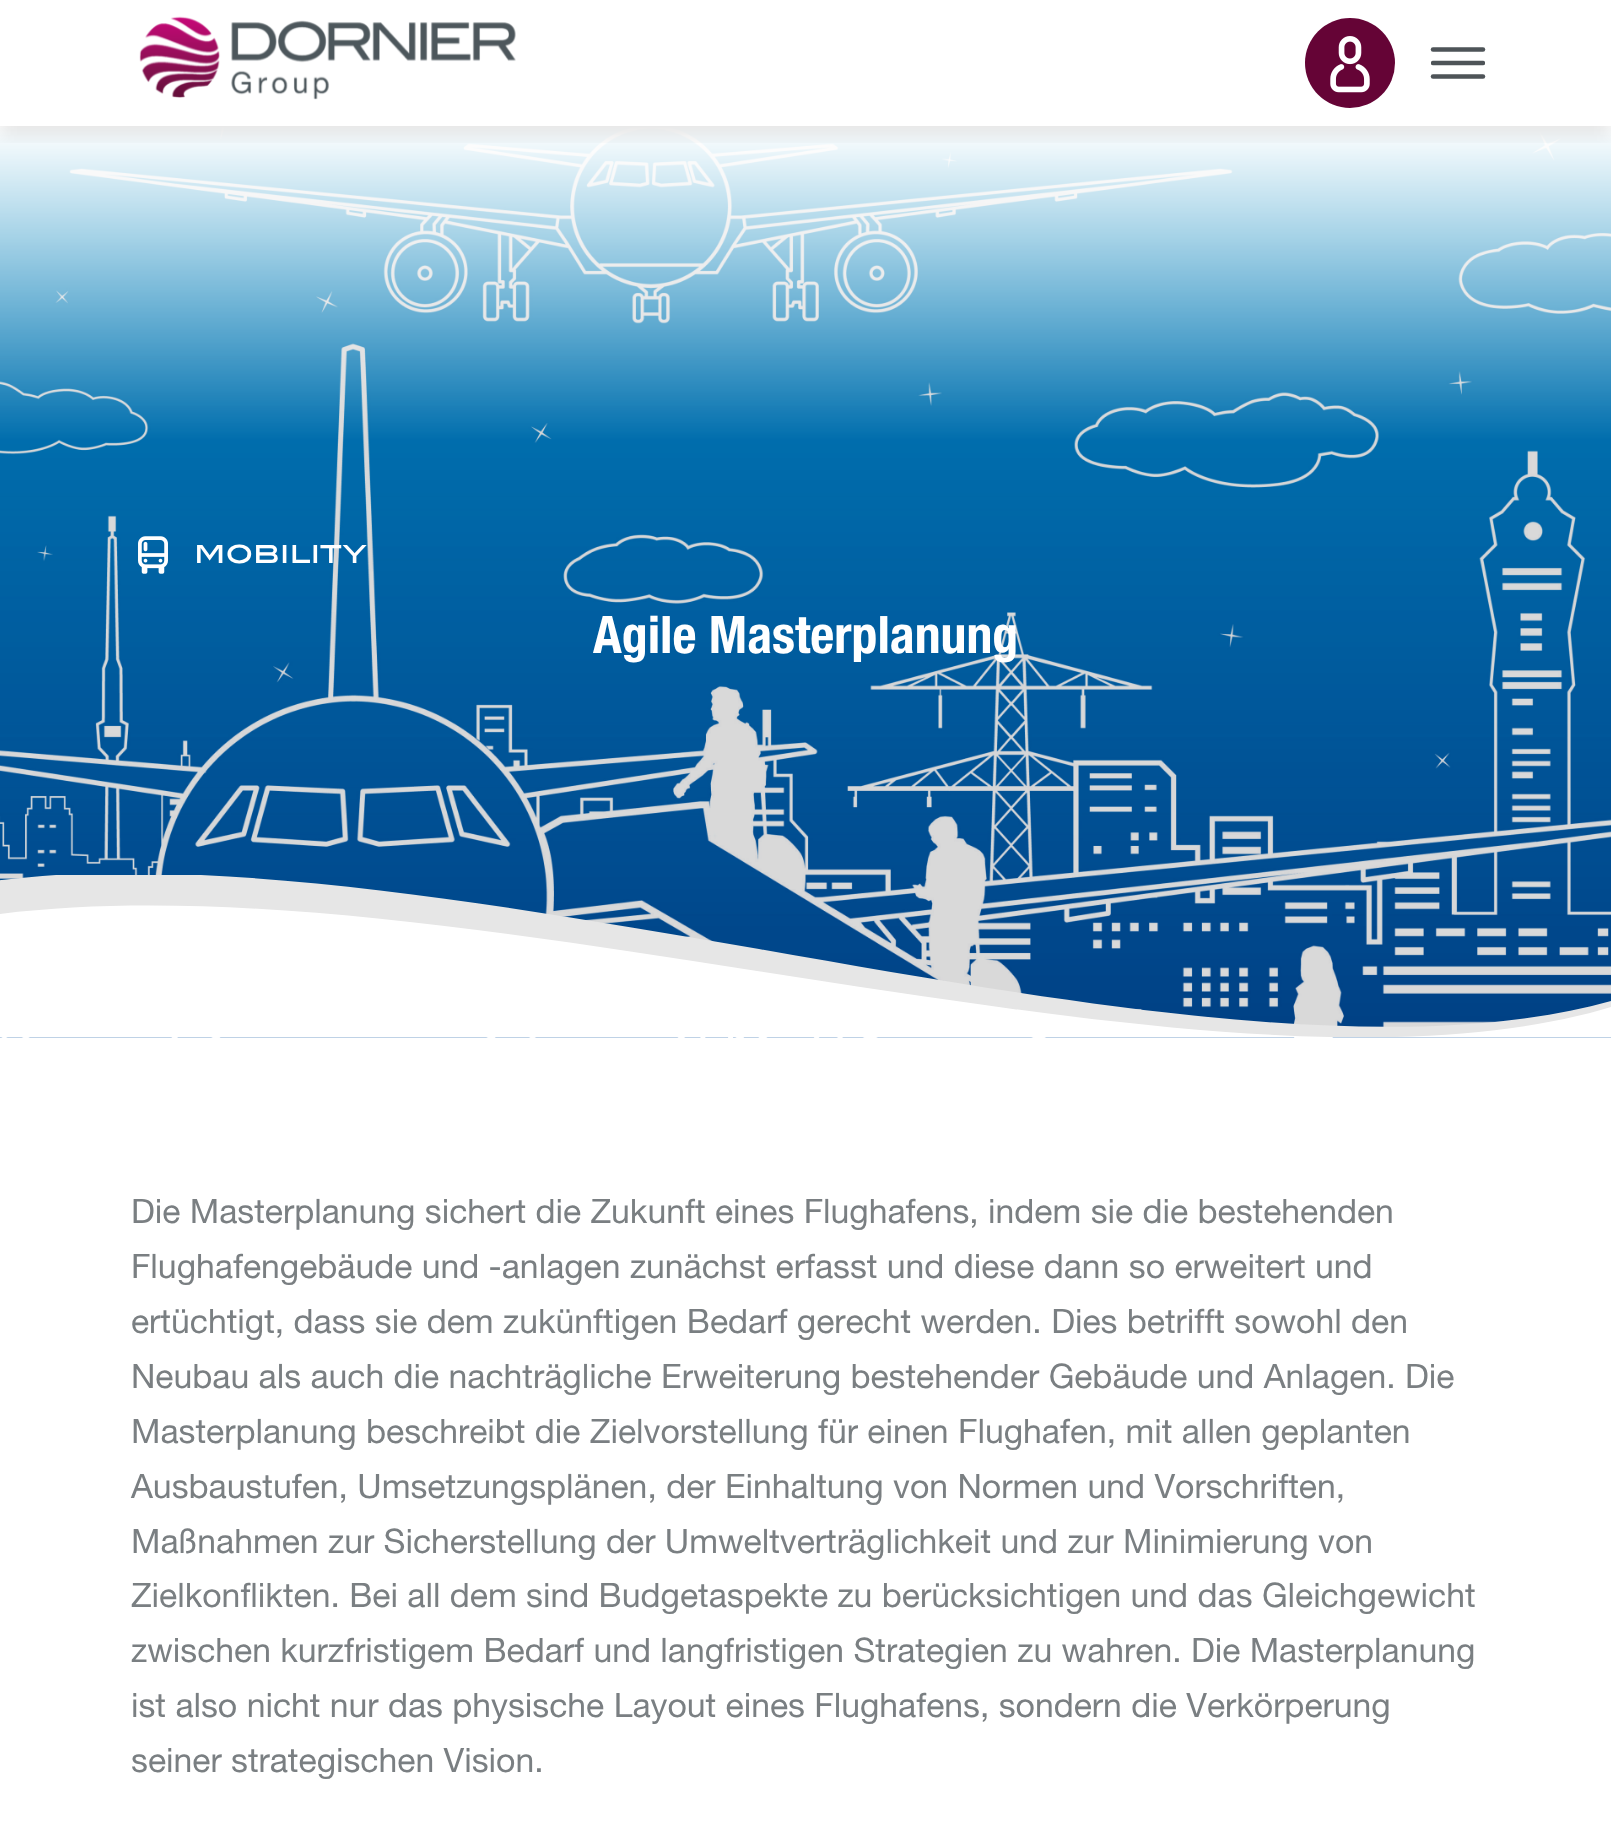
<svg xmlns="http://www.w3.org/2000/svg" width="1611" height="1825">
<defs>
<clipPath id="clip1"><rect x="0" y="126" width="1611" height="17"/></clipPath>
<clipPath id="clip2"><rect x="1431" y="47" width="54" height="32"/></clipPath>
<clipPath id="clip3"><rect y="875" width="1611" height="162"/></clipPath>
</defs>
<rect width="100%" height="100%" fill="#fff"/>
<image x="0" y="126" width="1611" height="912" href="media/3.png"/>
<g clip-path="url(#clip1)">
<rect y="9" width="1611" height="126" fill="#0000001a" filter="blur(9px)"/>
</g>
<image x="139" y="16" width="377" height="84" href="media/1.png"/>
<circle cx="1350" cy="63" r="45" fill="#650436"/>
<image x="1330" y="36" width="40" height="57" href="media/2.png"/>
<path d="M1433 49.5h50" fill="none" stroke="#4e5458" stroke-width="4.5" stroke-linecap="round"/>
<g clip-path="url(#clip2)">
<path d="M1433 63h50" fill="none" stroke="#4e5458" stroke-width="4.5" stroke-linecap="round"/>
</g>
<path d="M1433 76.5h50" fill="none" stroke="#4e5458" stroke-width="4.5" stroke-linecap="round"/>
<image x="138" y="536" width="30" height="38" href="media/4.png"/>
<text x="194" y="563" style="font-family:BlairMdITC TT;font-size:29.25px;font-weight:500;fill:#fff">mobility</text>
<text x="593" y="653" style="font-family:Helvetica Neue;font-size:51.75px;font-weight:bold;fill:#fff">Agile Masterplanung</text>
<g clip-path="url(#clip3)">
<path d="M-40 885c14-2 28-4 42-5c18-2 36-4 54-5h145c174 8 367 41 558 74c341 60 677 119 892 39v53h-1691z" fill="#e6e6e6"/>
<path d="M-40 919l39-5c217-27 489 15 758 57c343 53 681 107 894 22v48h-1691z" fill="#fff"/>
</g>
<text x="131" y="1223" style="font-family:Helvetica Neue;font-size:33.75px;fill:#7a7f82">Die Masterplanung sichert die Zukunft eines Flughafens, indem sie die bestehenden</text>
<text x="131" y="1278" style="font-family:Helvetica Neue;font-size:33.75px;fill:#7a7f82">Flughafengebäude und -anlagen zunächst erfasst und diese dann so erweitert und</text>
<text x="131" y="1333" style="font-family:Helvetica Neue;font-size:33.75px;fill:#7a7f82">ertüchtigt, dass sie dem zukünftigen Bedarf gerecht werden. Dies betrifft sowohl den</text>
<text x="131" y="1388" style="font-family:Helvetica Neue;font-size:33.75px;fill:#7a7f82">Neubau als auch die nachträgliche Erweiterung bestehender Gebäude und Anlagen. Die</text>
<text x="131" y="1443" style="font-family:Helvetica Neue;font-size:33.75px;fill:#7a7f82">Masterplanung beschreibt die Zielvorstellung für einen Flughafen, mit allen geplanten</text>
<text x="131" y="1498" style="font-family:Helvetica Neue;font-size:33.75px;fill:#7a7f82">Ausbaustufen, Umsetzungsplänen, der Einhaltung von Normen und Vorschriften,</text>
<text x="131" y="1553" style="font-family:Helvetica Neue;font-size:33.75px;fill:#7a7f82">Maßnahmen zur Sicherstellung der Umweltverträglichkeit und zur Minimierung von</text>
<text x="131" y="1607" style="font-family:Helvetica Neue;font-size:33.75px;fill:#7a7f82">Zielkonflikten. Bei all dem sind Budgetaspekte zu berücksichtigen und das Gleichgewicht</text>
<text x="131" y="1662" style="font-family:Helvetica Neue;font-size:33.75px;fill:#7a7f82">zwischen kurzfristigem Bedarf und langfristigen Strategien zu wahren. Die Masterplanung</text>
<text x="131" y="1717" style="font-family:Helvetica Neue;font-size:33.75px;fill:#7a7f82">ist also nicht nur das physische Layout eines Flughafens, sondern die Verkörperung</text>
<text x="131" y="1772" style="font-family:Helvetica Neue;font-size:33.75px;fill:#7a7f82">seiner strategischen Vision.</text>
</svg>
